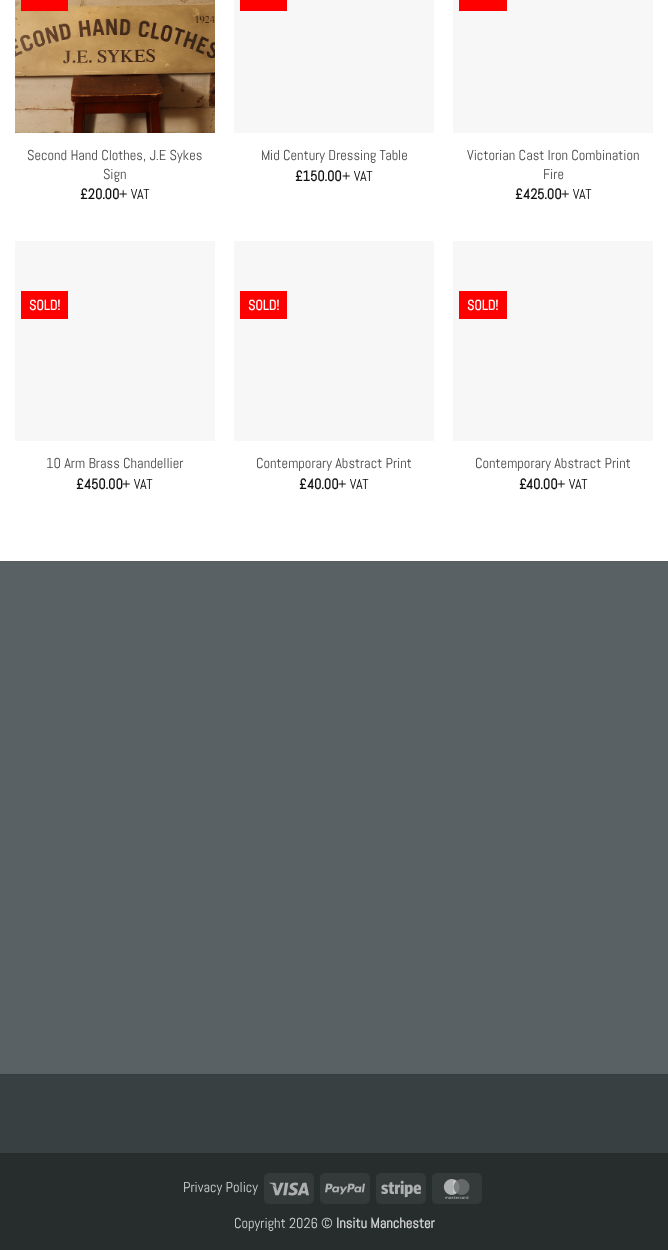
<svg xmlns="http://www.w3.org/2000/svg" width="668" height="1250">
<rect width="100%" height="100%" fill="#fff"/>
<image x="15" y="0" width="200" height="133" href="media/1.png"/>
<rect x="21" width="47" height="11" fill="#f00"/>
<text x="27" y="160" style="font-family:Abel;font-size:14.4px;fill:#474747">Second Hand Clothes, J.E Sykes</text>
<text x="103" y="179" style="font-family:Abel;font-size:14.4px;fill:#474747">Sign</text>
<text x="80" y="199" style="font-family:Abel;font-size:14.4px;font-weight:bold;fill:#111">£20.00</text>
<text x="119" y="199" style="font-family:Abel;font-size:14.4px;fill:#0a0a0a">+ VAT</text>
<rect x="234" width="200" height="133" fill="#f7f7f7"/>
<rect x="240" width="47" height="11" fill="#f00"/>
<text x="261" y="160" style="font-family:Abel;font-size:14.4px;fill:#474747">Mid Century Dressing Table</text>
<text x="295" y="181" style="font-family:Abel;font-size:14.4px;font-weight:bold;fill:#111">£150.00</text>
<text x="342" y="181" style="font-family:Abel;font-size:14.4px;fill:#0a0a0a">+ VAT</text>
<rect x="453" width="200" height="133" fill="#f7f7f7"/>
<rect x="459" width="48" height="11" fill="#f00"/>
<text x="467" y="160" style="font-family:Abel;font-size:14.4px;fill:#474747">Victorian Cast Iron Combination</text>
<text x="543" y="179" style="font-family:Abel;font-size:14.4px;fill:#474747">Fire</text>
<text x="515" y="199" style="font-family:Abel;font-size:14.4px;font-weight:bold;fill:#111">£</text>
<text x="523" y="199" style="font-family:Abel;font-size:14.4px;font-weight:bold;fill:#111">425.00</text>
<text x="561" y="199" style="font-family:Abel;font-size:14.4px;fill:#0a0a0a">+ VAT</text>
<rect x="15" y="241" width="200" height="200" fill="#f7f7f7"/>
<rect x="21" y="291" width="47" height="28" fill="#f00"/>
<text x="29" y="310" style="font-family:Abel;font-size:14px;font-weight:bold;fill:#fff">SOLD!</text>
<text x="46" y="468" style="font-family:Abel;font-size:14.4px;fill:#474747">10 Arm Brass Chandellier</text>
<text x="76" y="489" style="font-family:Abel;font-size:14.4px;font-weight:bold;fill:#111">£</text>
<text x="84" y="489" style="font-family:Abel;font-size:14.4px;font-weight:bold;fill:#111">450.00</text>
<text x="122" y="489" style="font-family:Abel;font-size:14.4px;fill:#0a0a0a">+ VAT</text>
<rect x="234" y="241" width="200" height="200" fill="#f7f7f7"/>
<rect x="240" y="291" width="47" height="28" fill="#f00"/>
<text x="248" y="310" style="font-family:Abel;font-size:14px;font-weight:bold;fill:#fff">SOLD!</text>
<text x="256" y="468" style="font-family:Abel;font-size:14.4px;fill:#474747">Contemporary Abstract Print</text>
<text x="299" y="489" style="font-family:Abel;font-size:14.4px;font-weight:bold;fill:#111">£</text>
<text x="307" y="489" style="font-family:Abel;font-size:14.4px;font-weight:bold;fill:#111">40.00</text>
<text x="338" y="489" style="font-family:Abel;font-size:14.4px;fill:#0a0a0a">+ VAT</text>
<rect x="453" y="241" width="200" height="200" fill="#f7f7f7"/>
<rect x="459" y="291" width="48" height="28" fill="#f00"/>
<text x="467" y="310" style="font-family:Abel;font-size:14px;font-weight:bold;fill:#fff">SOLD!</text>
<text x="475" y="468" style="font-family:Abel;font-size:14.4px;fill:#474747">Contemporary Abstract Print</text>
<text x="519" y="489" style="font-family:Abel;font-size:14.4px;font-weight:bold;fill:#111">£</text>
<text x="526" y="489" style="font-family:Abel;font-size:14.4px;font-weight:bold;fill:#111">40.00</text>
<text x="557" y="489" style="font-family:Abel;font-size:14.4px;fill:#0a0a0a">+ VAT</text>
<rect y="562" width="668" height="512" fill="#5a6164"/>
<rect y="561" width="668" height="1" fill="#565c5f"/>
<rect y="1075" width="668" height="78" fill="#394042"/>
<rect y="1074" width="668" height="1" fill="#363d3f"/>
<rect y="1153" width="668" height="97" fill="#272c2d"/>
<text x="183" y="1192" style="font-family:Abel;font-size:14.4px;fill:#d4d5d5">Privacy Policy</text>
<rect x="264" y="1173" width="50" height="31" rx="5" fill="#34393a"/>
<image x="269" y="1182" width="40" height="14" href="media/2.png"/>
<rect x="320" y="1173" width="50" height="31" rx="5" fill="#34393a"/>
<image x="325" y="1183" width="40" height="12" href="media/3.png"/>
<rect x="376" y="1173" width="50" height="31" rx="5" fill="#34393a"/>
<image x="381" y="1180" width="40" height="18" href="media/4.png"/>
<rect x="432" y="1173" width="50" height="31" rx="5" fill="#34393a"/>
<image x="443" y="1179" width="27" height="20" href="media/5.png"/>
<text x="234" y="1228" style="font-family:Abel;font-size:14.4px;fill:#d4d5d5">Copyright 2026 ©</text>
<text x="336" y="1228" style="font-family:Abel;font-size:14.4px;font-weight:bold;fill:#d4d5d5">Insitu Manchester</text>
</svg>
